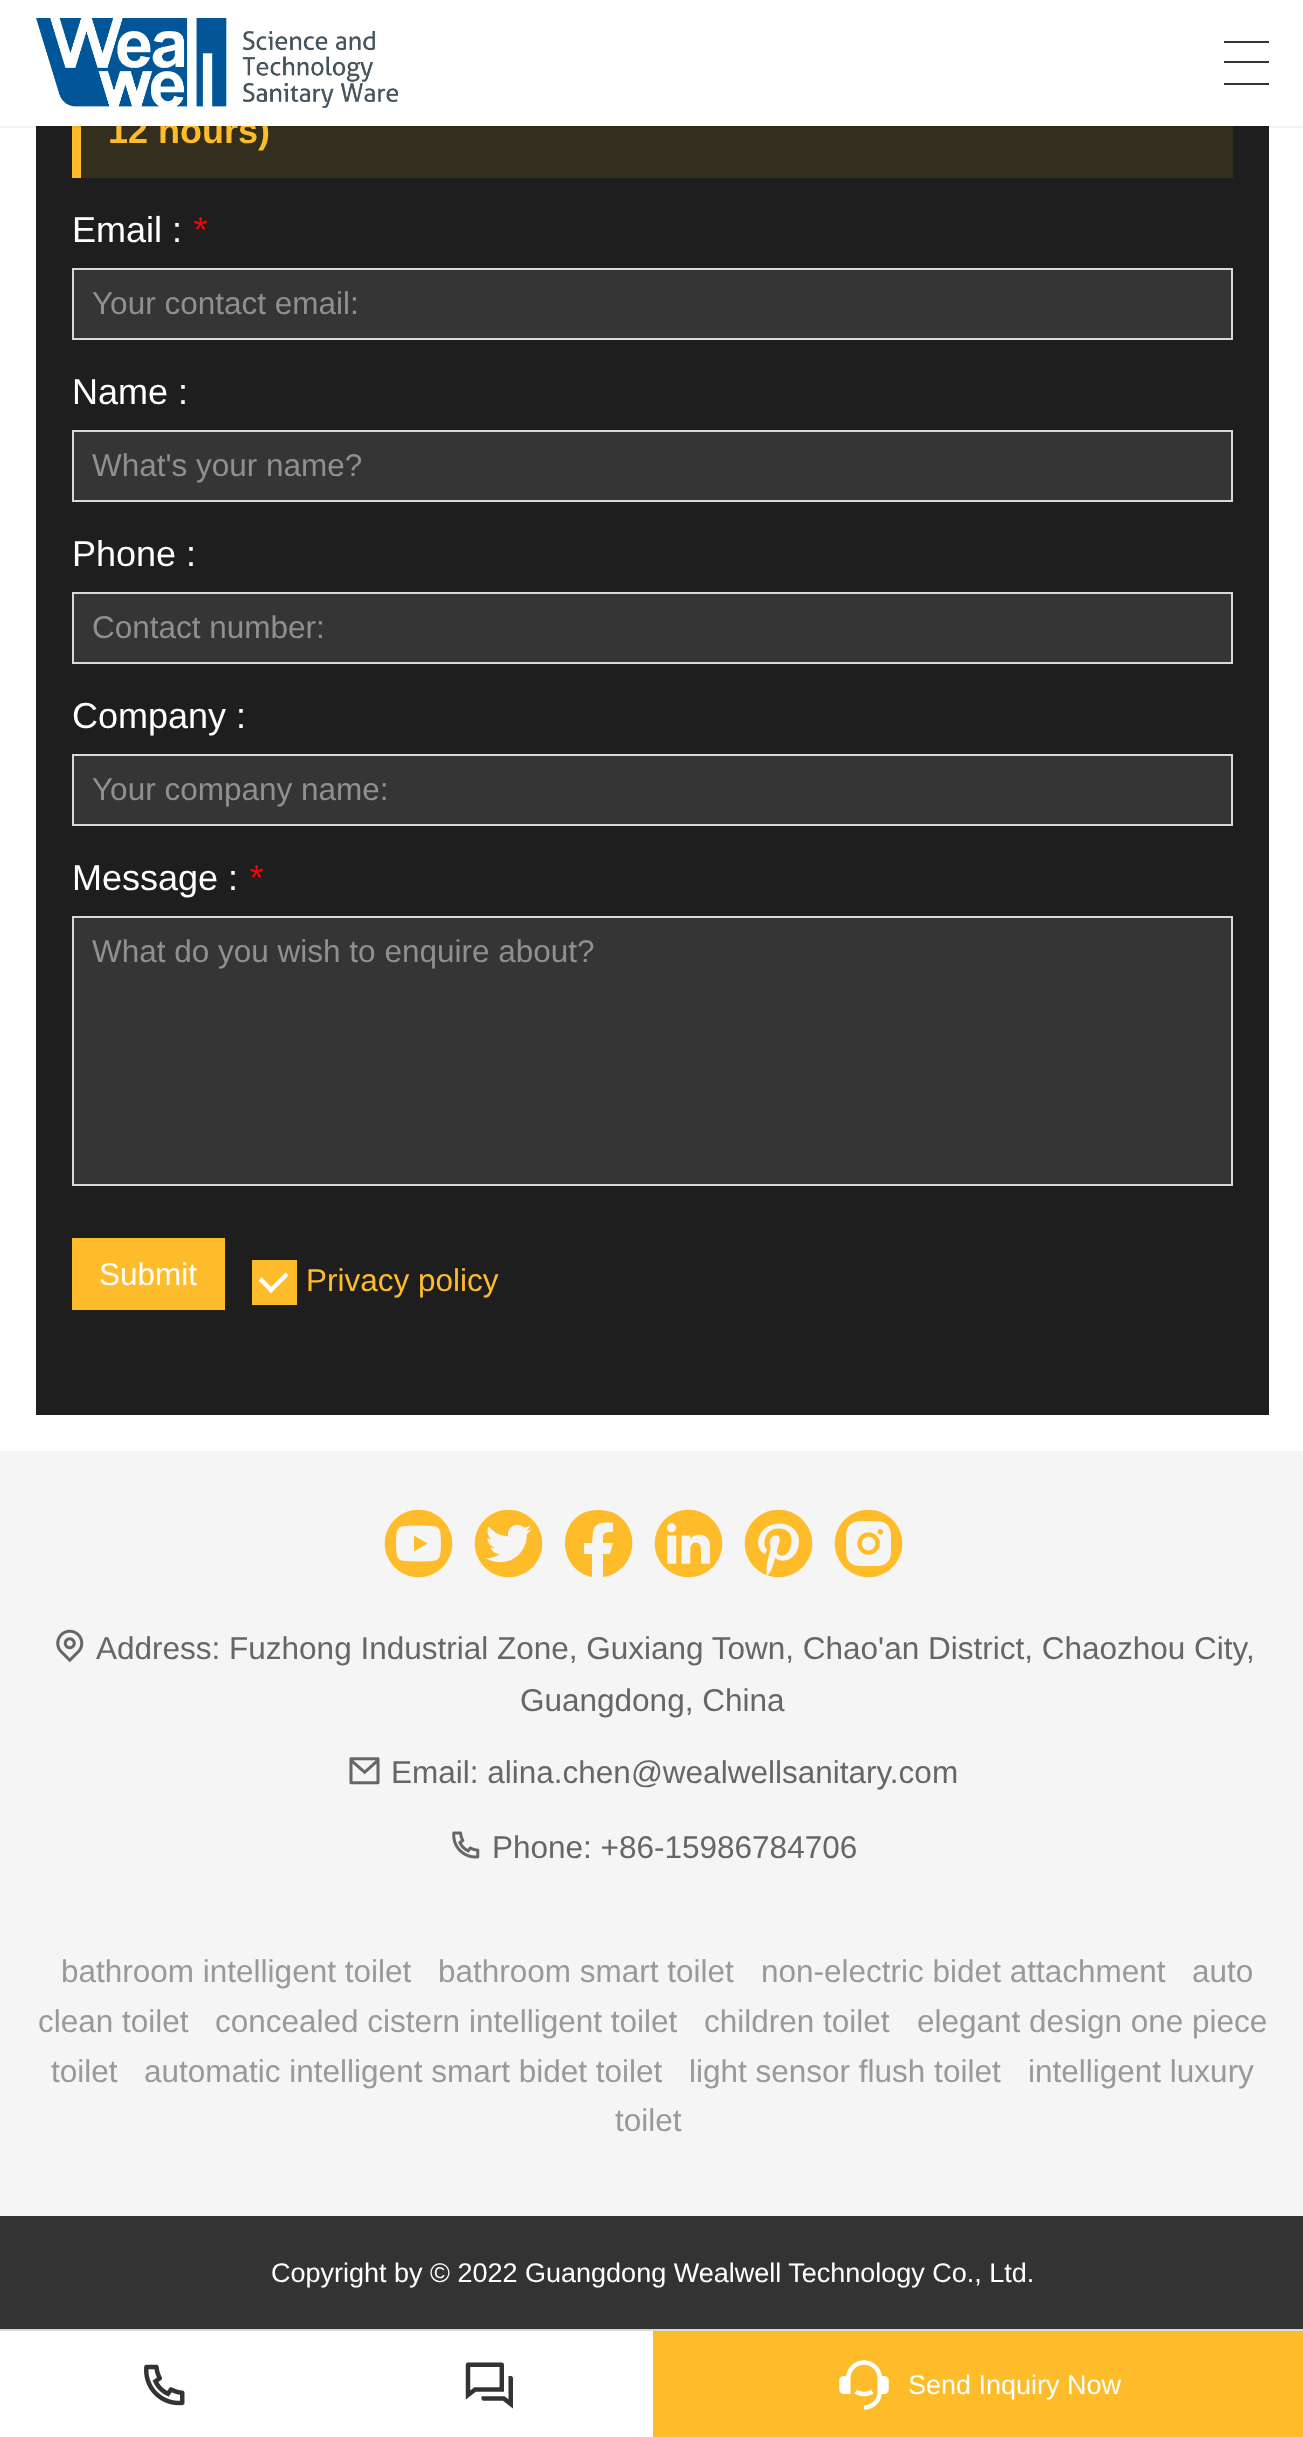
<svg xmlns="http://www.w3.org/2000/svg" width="1303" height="2437">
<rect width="100%" height="100%" fill="#fff"/>
<rect x="36" y="126" width="1233" height="1289" fill="#1e1e1e"/>
<rect x="81" y="126" width="1152" height="52" fill="#342e1f"/>
<rect x="72" y="126" width="9" height="52" fill="#febc2a"/>
<rect y="126" width="1303" height="2" fill="#0000000d"/>
<text x="108" y="143" style="font-family:Liberation Sans;font-size:36px;font-weight:bold;fill:#febc2a">12 hours)</text>
<rect x="110" y="116" width="158" height="10" fill="#fff"/>
<image x="36" y="18" width="362" height="90" href="media/1.png"/>
<rect x="1224" y="41" width="45" height="2" fill="#333"/>
<rect x="1224" y="61" width="45" height="2" fill="#333"/>
<rect x="1224" y="83" width="45" height="2" fill="#333"/>
<text x="72" y="242" style="font-family:Liberation Sans;font-size:36px;fill:#fff">Email :</text>
<text x="192" y="242" style="font-family:Liberation Sans;font-size:36px;font-style:italic;fill:#f00">*</text>
<rect x="73" y="269" width="1159" height="70" fill="#353535" stroke="#d9d9d9" stroke-width="2"/>
<text x="92" y="314" style="font-family:Liberation Sans;font-size:31.5px;fill:#909090">Your contact email:</text>
<text x="72" y="404" style="font-family:Liberation Sans;font-size:36px;fill:#fff">Name :</text>
<rect x="73" y="431" width="1159" height="70" fill="#353535" stroke="#d9d9d9" stroke-width="2"/>
<text x="92" y="476" style="font-family:Liberation Sans;font-size:31.5px;fill:#909090">What's your name?</text>
<text x="72" y="566" style="font-family:Liberation Sans;font-size:36px;fill:#fff">Phone :</text>
<rect x="73" y="593" width="1159" height="70" fill="#353535" stroke="#d9d9d9" stroke-width="2"/>
<text x="92" y="638" style="font-family:Liberation Sans;font-size:31.5px;fill:#909090">Contact number:</text>
<text x="72" y="728" style="font-family:Liberation Sans;font-size:36px;fill:#fff">Company :</text>
<rect x="73" y="755" width="1159" height="70" fill="#353535" stroke="#d9d9d9" stroke-width="2"/>
<text x="92" y="800" style="font-family:Liberation Sans;font-size:31.5px;fill:#909090">Your company name:</text>
<text x="72" y="890" style="font-family:Liberation Sans;font-size:36px;fill:#fff">Message :</text>
<text x="248" y="890" style="font-family:Liberation Sans;font-size:36px;font-style:italic;fill:#f00">*</text>
<rect x="73" y="917" width="1159" height="268" fill="#353535" stroke="#d9d9d9" stroke-width="2"/>
<text x="92" y="962" style="font-family:Liberation Sans;font-size:31.5px;fill:#909090">What do you wish to enquire about?</text>
<rect x="72" y="1238" width="153" height="72" fill="#febc2a"/>
<text x="99" y="1285" style="font-family:Liberation Sans;font-size:31.5px;fill:#fff">Submit</text>
<rect x="252" y="1260" width="45" height="45" fill="#febc2a"/>
<text x="306" y="1291" style="font-family:Liberation Sans;font-size:31.5px;fill:#febc2a">Privacy policy</text>
<path d="M268 1290l17.5-17.5l3 3l-17.5 17.5z" fill="#fff"/>
<path d="M258.5 1280.5l3-3.5l12.5 13l-3 3z" fill="#fff"/>
<rect y="1451" width="1303" height="765" fill="#f5f5f5"/>
<image x="384" y="1509" width="69" height="69" href="media/2.png"/>
<image x="474" y="1509" width="69" height="69" href="media/3.png"/>
<path d="M598 1510c-6 0-11 1-17 4c-26 16-19 57 11 63v-23h-8v-11h8l1-11c1-10 12-10 20-9v9c-11 0-10 1-10 11h10l-3 11h-7v23c32-5 40-47 13-63c-6-3-11-4-18-4z" fill="#febc2a"/>
<image x="654" y="1509" width="69" height="69" href="media/4.png"/>
<image x="744" y="1509" width="69" height="69" href="media/5.png"/>
<image x="834" y="1509" width="69" height="69" href="media/6.png"/>
<image x="56" y="1629" width="28" height="34" href="media/7.png"/>
<text x="96" y="1659" style="font-family:Liberation Sans;font-size:31.5px;fill:#666">Address: Fuzhong Industrial Zone, Guxiang Town, Chao'an District, Chaozhou City,</text>
<text x="520" y="1711" style="font-family:Liberation Sans;font-size:31.5px;fill:#666">Guangdong, China</text>
<image x="349" y="1757" width="31" height="28" href="media/8.png"/>
<text x="391" y="1783" style="font-family:Liberation Sans;font-size:31.5px;fill:#666">Email: alina.chen@wealwellsanitary.com</text>
<image x="452" y="1831" width="28" height="28" href="media/9.png"/>
<text x="492" y="1858" style="font-family:Liberation Sans;font-size:31.5px;fill:#666">Phone: +86-15986784706</text>
<text x="61" y="1982" style="font-family:Liberation Sans;font-size:31.5px;fill:#999">bathroom intelligent toilet</text>
<text x="438" y="1982" style="font-family:Liberation Sans;font-size:31.5px;fill:#999">bathroom smart toilet</text>
<text x="761" y="1982" style="font-family:Liberation Sans;font-size:31.5px;fill:#999">non-electric bidet attachment</text>
<text x="1192" y="1982" style="font-family:Liberation Sans;font-size:31.5px;fill:#999">auto</text>
<text x="38" y="2032" style="font-family:Liberation Sans;font-size:31.5px;fill:#999">clean toilet</text>
<text x="215" y="2032" style="font-family:Liberation Sans;font-size:31.5px;fill:#999">concealed cistern intelligent toilet</text>
<text x="704" y="2032" style="font-family:Liberation Sans;font-size:31.5px;fill:#999">children toilet</text>
<text x="917" y="2032" style="font-family:Liberation Sans;font-size:31.5px;fill:#999">elegant design one piece</text>
<text x="51" y="2082" style="font-family:Liberation Sans;font-size:31.5px;fill:#999">toilet</text>
<text x="144" y="2082" style="font-family:Liberation Sans;font-size:31.5px;fill:#999">automatic intelligent smart bidet toilet</text>
<text x="689" y="2082" style="font-family:Liberation Sans;font-size:31.5px;fill:#999">light sensor flush toilet</text>
<text x="1028" y="2082" style="font-family:Liberation Sans;font-size:31.5px;fill:#999">intelligent luxury</text>
<text x="615" y="2131" style="font-family:Liberation Sans;font-size:31.5px;fill:#999">toilet</text>
<rect y="2216" width="1303" height="113" fill="#333"/>
<text x="271" y="2282" style="font-family:Liberation Sans;font-size:27px;fill:#fff">Copyright by © 2022 Guangdong Wealwell Technology Co., Ltd.</text>
<rect x="-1" y="2330" width="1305" height="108" fill="none" stroke="#d9d9d9" stroke-width="2"/>
<image x="144" y="2364" width="41" height="42" href="media/10.png"/>
<image x="465" y="2362" width="48" height="47" href="media/11.png"/>
<rect x="653" y="2331" width="650" height="106" fill="#febc2a"/>
<image x="839" y="2360" width="50" height="50" href="media/12.png"/>
<text x="908" y="2394" style="font-family:Liberation Sans;font-size:27px;fill:#fff">Send Inquiry Now</text>
</svg>
